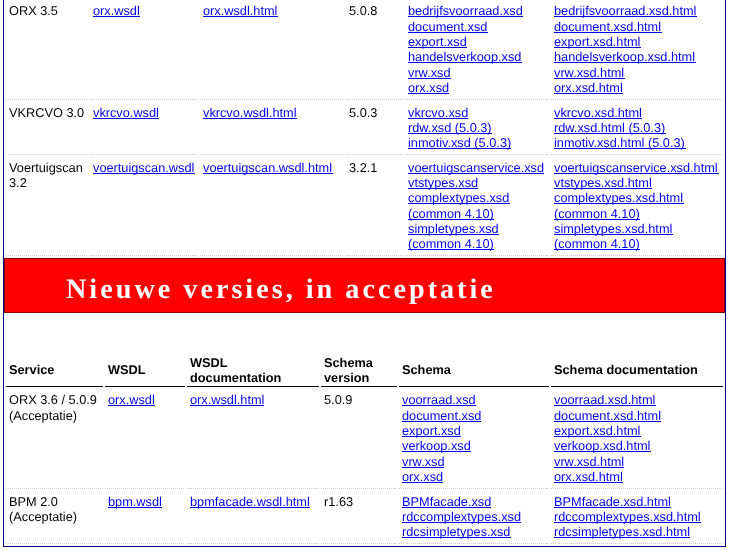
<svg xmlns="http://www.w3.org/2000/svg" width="729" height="550">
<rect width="100%" height="100%" fill="#fff"/>
<rect x="3.5" y="-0.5" width="722" height="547" fill="none" stroke="#000080"/>
<path d="M6 99.5h82" fill="none" stroke="#ccc" stroke-dasharray="1 1"/>
<text x="9" y="15" style="font-family:Liberation Sans;font-size:12.75px;fill:#000">ORX 3.5</text>
<path d="M90 99.5h108" fill="none" stroke="#ccc" stroke-dasharray="1 1"/>
<text x="93" y="15" style="font-family:Liberation Sans;font-size:12.75px;fill:#00e">orx.wsdl</text>
<rect x="93" y="16" width="47" height="1" fill="#00e"/>
<path d="M200 99.5h144" fill="none" stroke="#ccc" stroke-dasharray="1 1"/>
<text x="203" y="15" style="font-family:Liberation Sans;font-size:12.75px;fill:#00e">orx.wsdl.html</text>
<rect x="203" y="16" width="75" height="1" fill="#00e"/>
<path d="M346 99.5h57" fill="none" stroke="#ccc" stroke-dasharray="1 1"/>
<text x="349" y="15" style="font-family:Liberation Sans;font-size:12.75px;fill:#000">5.0.8</text>
<path d="M405 99.5h144" fill="none" stroke="#ccc" stroke-dasharray="1 1"/>
<rect x="408" y="16" width="115" height="1" fill="#00e"/>
<text x="408" y="15" style="font-family:Liberation Sans;font-size:12.75px;fill:#00e">bedrijfsvoorraad.xsd</text>
<text x="408" y="31" style="font-family:Liberation Sans;font-size:12.75px;fill:#00e">document.xsd</text>
<rect x="408" y="32" width="80" height="1" fill="#00e"/>
<rect x="408" y="47" width="59" height="1" fill="#00e"/>
<text x="408" y="46" style="font-family:Liberation Sans;font-size:12.75px;fill:#00e">export.xsd</text>
<rect x="408" y="62" width="114" height="1" fill="#00e"/>
<text x="408" y="61" style="font-family:Liberation Sans;font-size:12.75px;fill:#00e">handelsverkoop.xsd</text>
<text x="408" y="77" style="font-family:Liberation Sans;font-size:12.75px;fill:#00e">vrw.xsd</text>
<rect x="408" y="78" width="43" height="1" fill="#00e"/>
<text x="408" y="92" style="font-family:Liberation Sans;font-size:12.75px;fill:#00e">orx.xsd</text>
<rect x="408" y="93" width="41" height="1" fill="#00e"/>
<path d="M551 99.5h172" fill="none" stroke="#ccc" stroke-dasharray="1 1"/>
<rect x="554" y="16" width="143" height="1" fill="#00e"/>
<text x="554" y="15" style="font-family:Liberation Sans;font-size:12.75px;fill:#00e">bedrijfsvoorraad.xsd.html</text>
<text x="554" y="31" style="font-family:Liberation Sans;font-size:12.75px;fill:#00e">document.xsd.html</text>
<rect x="554" y="32" width="108" height="1" fill="#00e"/>
<rect x="554" y="47" width="87" height="1" fill="#00e"/>
<text x="554" y="46" style="font-family:Liberation Sans;font-size:12.75px;fill:#00e">export.xsd.html</text>
<rect x="554" y="62" width="142" height="1" fill="#00e"/>
<text x="554" y="61" style="font-family:Liberation Sans;font-size:12.75px;fill:#00e">handelsverkoop.xsd.html</text>
<text x="554" y="77" style="font-family:Liberation Sans;font-size:12.75px;fill:#00e">vrw.xsd.html</text>
<rect x="554" y="78" width="71" height="1" fill="#00e"/>
<text x="554" y="92" style="font-family:Liberation Sans;font-size:12.75px;fill:#00e">orx.xsd.html</text>
<rect x="554" y="93" width="69" height="1" fill="#00e"/>
<path d="M6 154.5h82" fill="none" stroke="#ccc" stroke-dasharray="1 1"/>
<text x="9" y="117" style="font-family:Liberation Sans;font-size:12.75px;fill:#000">VKRCVO 3.0</text>
<path d="M90 154.5h108" fill="none" stroke="#ccc" stroke-dasharray="1 1"/>
<text x="93" y="117" style="font-family:Liberation Sans;font-size:12.75px;fill:#00e">vkrcvo.wsdl</text>
<rect x="93" y="118" width="66" height="1" fill="#00e"/>
<path d="M200 154.5h144" fill="none" stroke="#ccc" stroke-dasharray="1 1"/>
<text x="203" y="117" style="font-family:Liberation Sans;font-size:12.75px;fill:#00e">vkrcvo.wsdl.html</text>
<rect x="203" y="118" width="94" height="1" fill="#00e"/>
<path d="M346 154.5h57" fill="none" stroke="#ccc" stroke-dasharray="1 1"/>
<text x="349" y="117" style="font-family:Liberation Sans;font-size:12.75px;fill:#000">5.0.3</text>
<path d="M405 154.5h144" fill="none" stroke="#ccc" stroke-dasharray="1 1"/>
<text x="408" y="117" style="font-family:Liberation Sans;font-size:12.75px;fill:#00e">vkrcvo.xsd</text>
<rect x="408" y="118" width="60" height="1" fill="#00e"/>
<rect x="408" y="133" width="84" height="1" fill="#00e"/>
<text x="408" y="132" style="font-family:Liberation Sans;font-size:12.75px;fill:#00e">rdw.xsd (5.0.3)</text>
<rect x="408" y="148" width="103" height="1" fill="#00e"/>
<text x="408" y="147" style="font-family:Liberation Sans;font-size:12.75px;fill:#00e">inmotiv.xsd (5.0.3)</text>
<path d="M551 154.5h172" fill="none" stroke="#ccc" stroke-dasharray="1 1"/>
<text x="554" y="117" style="font-family:Liberation Sans;font-size:12.75px;fill:#00e">vkrcvo.xsd.html</text>
<rect x="554" y="118" width="88" height="1" fill="#00e"/>
<rect x="554" y="133" width="112" height="1" fill="#00e"/>
<text x="554" y="132" style="font-family:Liberation Sans;font-size:12.75px;fill:#00e">rdw.xsd.html (5.0.3)</text>
<rect x="554" y="148" width="132" height="1" fill="#00e"/>
<text x="554" y="147" style="font-family:Liberation Sans;font-size:12.75px;fill:#00e">inmotiv.xsd.html (5.0.3)</text>
<path d="M6 255.5h82" fill="none" stroke="#ccc" stroke-dasharray="1 1"/>
<text x="9" y="172" style="font-family:Liberation Sans;font-size:12.75px;fill:#000">Voertuigscan</text>
<text x="9" y="187" style="font-family:Liberation Sans;font-size:12.75px;fill:#000">3.2</text>
<path d="M90 255.5h108" fill="none" stroke="#ccc" stroke-dasharray="1 1"/>
<rect x="93" y="173" width="102" height="1" fill="#00e"/>
<text x="93" y="172" style="font-family:Liberation Sans;font-size:12.75px;fill:#00e">voertuigscan.wsdl</text>
<path d="M200 255.5h144" fill="none" stroke="#ccc" stroke-dasharray="1 1"/>
<rect x="203" y="173" width="130" height="1" fill="#00e"/>
<text x="203" y="172" style="font-family:Liberation Sans;font-size:12.75px;fill:#00e">voertuigscan.wsdl.html</text>
<path d="M346 255.5h57" fill="none" stroke="#ccc" stroke-dasharray="1 1"/>
<text x="349" y="172" style="font-family:Liberation Sans;font-size:12.75px;fill:#000">3.2.1</text>
<path d="M405 255.5h144" fill="none" stroke="#ccc" stroke-dasharray="1 1"/>
<rect x="408" y="173" width="136" height="1" fill="#00e"/>
<text x="408" y="172" style="font-family:Liberation Sans;font-size:12.75px;fill:#00e">voertuigscanservice.xsd</text>
<rect x="408" y="188" width="70" height="1" fill="#00e"/>
<text x="408" y="187" style="font-family:Liberation Sans;font-size:12.75px;fill:#00e">vtstypes.xsd</text>
<rect x="408" y="203" width="102" height="1" fill="#00e"/>
<text x="408" y="202" style="font-family:Liberation Sans;font-size:12.75px;fill:#00e">complextypes.xsd</text>
<rect x="408" y="219" width="86" height="1" fill="#00e"/>
<text x="408" y="218" style="font-family:Liberation Sans;font-size:12.75px;fill:#00e">(common 4.10)</text>
<rect x="408" y="234" width="91" height="1" fill="#00e"/>
<text x="408" y="233" style="font-family:Liberation Sans;font-size:12.75px;fill:#00e">simpletypes.xsd</text>
<rect x="408" y="249" width="86" height="1" fill="#00e"/>
<text x="408" y="248" style="font-family:Liberation Sans;font-size:12.75px;fill:#00e">(common 4.10)</text>
<path d="M551 255.5h172" fill="none" stroke="#ccc" stroke-dasharray="1 1"/>
<rect x="554" y="173" width="165" height="1" fill="#00e"/>
<text x="554" y="172" style="font-family:Liberation Sans;font-size:12.75px;fill:#00e">voertuigscanservice.xsd.html</text>
<rect x="554" y="188" width="98" height="1" fill="#00e"/>
<text x="554" y="187" style="font-family:Liberation Sans;font-size:12.75px;fill:#00e">vtstypes.xsd.html</text>
<rect x="554" y="203" width="130" height="1" fill="#00e"/>
<text x="554" y="202" style="font-family:Liberation Sans;font-size:12.75px;fill:#00e">complextypes.xsd.html</text>
<rect x="554" y="219" width="86" height="1" fill="#00e"/>
<text x="554" y="218" style="font-family:Liberation Sans;font-size:12.75px;fill:#00e">(common 4.10)</text>
<rect x="554" y="234" width="119" height="1" fill="#00e"/>
<text x="554" y="233" style="font-family:Liberation Sans;font-size:12.75px;fill:#00e">simpletypes.xsd.html</text>
<rect x="554" y="249" width="86" height="1" fill="#00e"/>
<text x="554" y="248" style="font-family:Liberation Sans;font-size:12.75px;fill:#00e">(common 4.10)</text>
<rect x="4.5" y="258.5" width="720" height="54" fill="#f00" stroke="#8b0000"/>
<text x="66" y="298" style="font-family:Liberation Serif;font-size:28.2px;font-weight:bold;letter-spacing:3px;fill:#fff">Nieuwe versies, in acceptatie</text>
<rect x="6" y="386" width="97" height="1" fill="#000"/>
<text x="9" y="374" style="font-family:Liberation Sans;font-size:12.75px;font-weight:bold;fill:#000">Service</text>
<rect x="105" y="386" width="80" height="1" fill="#000"/>
<text x="108" y="374" style="font-family:Liberation Sans;font-size:12.75px;font-weight:bold;fill:#000">WSDL</text>
<rect x="187" y="386" width="132" height="1" fill="#000"/>
<text x="190" y="367" style="font-family:Liberation Sans;font-size:12.75px;font-weight:bold;fill:#000">WSDL</text>
<text x="190" y="382" style="font-family:Liberation Sans;font-size:12.75px;font-weight:bold;fill:#000">documentation</text>
<rect x="321" y="386" width="76" height="1" fill="#000"/>
<text x="324" y="367" style="font-family:Liberation Sans;font-size:12.75px;font-weight:bold;fill:#000">Schema</text>
<text x="324" y="382" style="font-family:Liberation Sans;font-size:12.75px;font-weight:bold;fill:#000">version</text>
<rect x="399" y="386" width="150" height="1" fill="#000"/>
<text x="402" y="374" style="font-family:Liberation Sans;font-size:12.75px;font-weight:bold;fill:#000">Schema</text>
<rect x="551" y="386" width="172" height="1" fill="#000"/>
<text x="554" y="374" style="font-family:Liberation Sans;font-size:12.75px;font-weight:bold;fill:#000">Schema documentation</text>
<path d="M6 488.5h97" fill="none" stroke="#ccc" stroke-dasharray="1 1"/>
<text x="9" y="404" style="font-family:Liberation Sans;font-size:12.75px;fill:#000">ORX 3.6 / 5.0.9</text>
<text x="9" y="420" style="font-family:Liberation Sans;font-size:12.75px;fill:#000">(Acceptatie)</text>
<path d="M105 488.5h80" fill="none" stroke="#ccc" stroke-dasharray="1 1"/>
<text x="108" y="404" style="font-family:Liberation Sans;font-size:12.75px;fill:#00e">orx.wsdl</text>
<rect x="108" y="405" width="47" height="1" fill="#00e"/>
<path d="M187 488.5h132" fill="none" stroke="#ccc" stroke-dasharray="1 1"/>
<text x="190" y="404" style="font-family:Liberation Sans;font-size:12.75px;fill:#00e">orx.wsdl.html</text>
<rect x="190" y="405" width="74" height="1" fill="#00e"/>
<path d="M321 488.5h76" fill="none" stroke="#ccc" stroke-dasharray="1 1"/>
<text x="324" y="404" style="font-family:Liberation Sans;font-size:12.75px;fill:#000">5.0.9</text>
<path d="M399 488.5h150" fill="none" stroke="#ccc" stroke-dasharray="1 1"/>
<text x="402" y="404" style="font-family:Liberation Sans;font-size:12.75px;fill:#00e">voorraad.xsd</text>
<rect x="402" y="405" width="74" height="1" fill="#00e"/>
<text x="402" y="420" style="font-family:Liberation Sans;font-size:12.75px;fill:#00e">document.xsd</text>
<rect x="402" y="421" width="79" height="1" fill="#00e"/>
<rect x="402" y="436" width="59" height="1" fill="#00e"/>
<text x="402" y="435" style="font-family:Liberation Sans;font-size:12.75px;fill:#00e">export.xsd</text>
<rect x="402" y="451" width="69" height="1" fill="#00e"/>
<text x="402" y="450" style="font-family:Liberation Sans;font-size:12.75px;fill:#00e">verkoop.xsd</text>
<text x="402" y="466" style="font-family:Liberation Sans;font-size:12.75px;fill:#00e">vrw.xsd</text>
<rect x="402" y="467" width="42" height="1" fill="#00e"/>
<text x="402" y="481" style="font-family:Liberation Sans;font-size:12.75px;fill:#00e">orx.xsd</text>
<rect x="402" y="482" width="41" height="1" fill="#00e"/>
<path d="M551 488.5h172" fill="none" stroke="#ccc" stroke-dasharray="1 1"/>
<text x="554" y="404" style="font-family:Liberation Sans;font-size:12.75px;fill:#00e">voorraad.xsd.html</text>
<rect x="554" y="405" width="102" height="1" fill="#00e"/>
<text x="554" y="420" style="font-family:Liberation Sans;font-size:12.75px;fill:#00e">document.xsd.html</text>
<rect x="554" y="421" width="107" height="1" fill="#00e"/>
<rect x="554" y="436" width="87" height="1" fill="#00e"/>
<text x="554" y="435" style="font-family:Liberation Sans;font-size:12.75px;fill:#00e">export.xsd.html</text>
<rect x="554" y="451" width="97" height="1" fill="#00e"/>
<text x="554" y="450" style="font-family:Liberation Sans;font-size:12.75px;fill:#00e">verkoop.xsd.html</text>
<text x="554" y="466" style="font-family:Liberation Sans;font-size:12.75px;fill:#00e">vrw.xsd.html</text>
<rect x="554" y="467" width="70" height="1" fill="#00e"/>
<text x="554" y="481" style="font-family:Liberation Sans;font-size:12.75px;fill:#00e">orx.xsd.html</text>
<rect x="554" y="482" width="69" height="1" fill="#00e"/>
<path d="M6 543.5h97" fill="none" stroke="#ccc" stroke-dasharray="1 1"/>
<text x="9" y="506" style="font-family:Liberation Sans;font-size:12.75px;fill:#000">BPM 2.0</text>
<text x="9" y="521" style="font-family:Liberation Sans;font-size:12.75px;fill:#000">(Acceptatie)</text>
<path d="M105 543.5h80" fill="none" stroke="#ccc" stroke-dasharray="1 1"/>
<rect x="108" y="507" width="54" height="1" fill="#00e"/>
<text x="108" y="506" style="font-family:Liberation Sans;font-size:12.75px;fill:#00e">bpm.wsdl</text>
<path d="M187 543.5h132" fill="none" stroke="#ccc" stroke-dasharray="1 1"/>
<rect x="190" y="507" width="120" height="1" fill="#00e"/>
<text x="190" y="506" style="font-family:Liberation Sans;font-size:12.75px;fill:#00e">bpmfacade.wsdl.html</text>
<path d="M321 543.5h76" fill="none" stroke="#ccc" stroke-dasharray="1 1"/>
<text x="324" y="506" style="font-family:Liberation Sans;font-size:12.75px;fill:#000">r1.63</text>
<path d="M399 543.5h150" fill="none" stroke="#ccc" stroke-dasharray="1 1"/>
<text x="402" y="506" style="font-family:Liberation Sans;font-size:12.75px;fill:#00e">BPMfacade.xsd</text>
<rect x="402" y="507" width="89" height="1" fill="#00e"/>
<rect x="402" y="522" width="119" height="1" fill="#00e"/>
<text x="402" y="521" style="font-family:Liberation Sans;font-size:12.75px;fill:#00e">rdccomplextypes.xsd</text>
<rect x="402" y="537" width="109" height="1" fill="#00e"/>
<text x="402" y="536" style="font-family:Liberation Sans;font-size:12.75px;fill:#00e">rdcsimpletypes.xsd</text>
<path d="M551 543.5h172" fill="none" stroke="#ccc" stroke-dasharray="1 1"/>
<text x="554" y="506" style="font-family:Liberation Sans;font-size:12.75px;fill:#00e">BPMfacade.xsd.html</text>
<rect x="554" y="507" width="117" height="1" fill="#00e"/>
<rect x="554" y="522" width="147" height="1" fill="#00e"/>
<text x="554" y="521" style="font-family:Liberation Sans;font-size:12.75px;fill:#00e">rdccomplextypes.xsd.html</text>
<rect x="554" y="537" width="136" height="1" fill="#00e"/>
<text x="554" y="536" style="font-family:Liberation Sans;font-size:12.75px;fill:#00e">rdcsimpletypes.xsd.html</text>
</svg>
